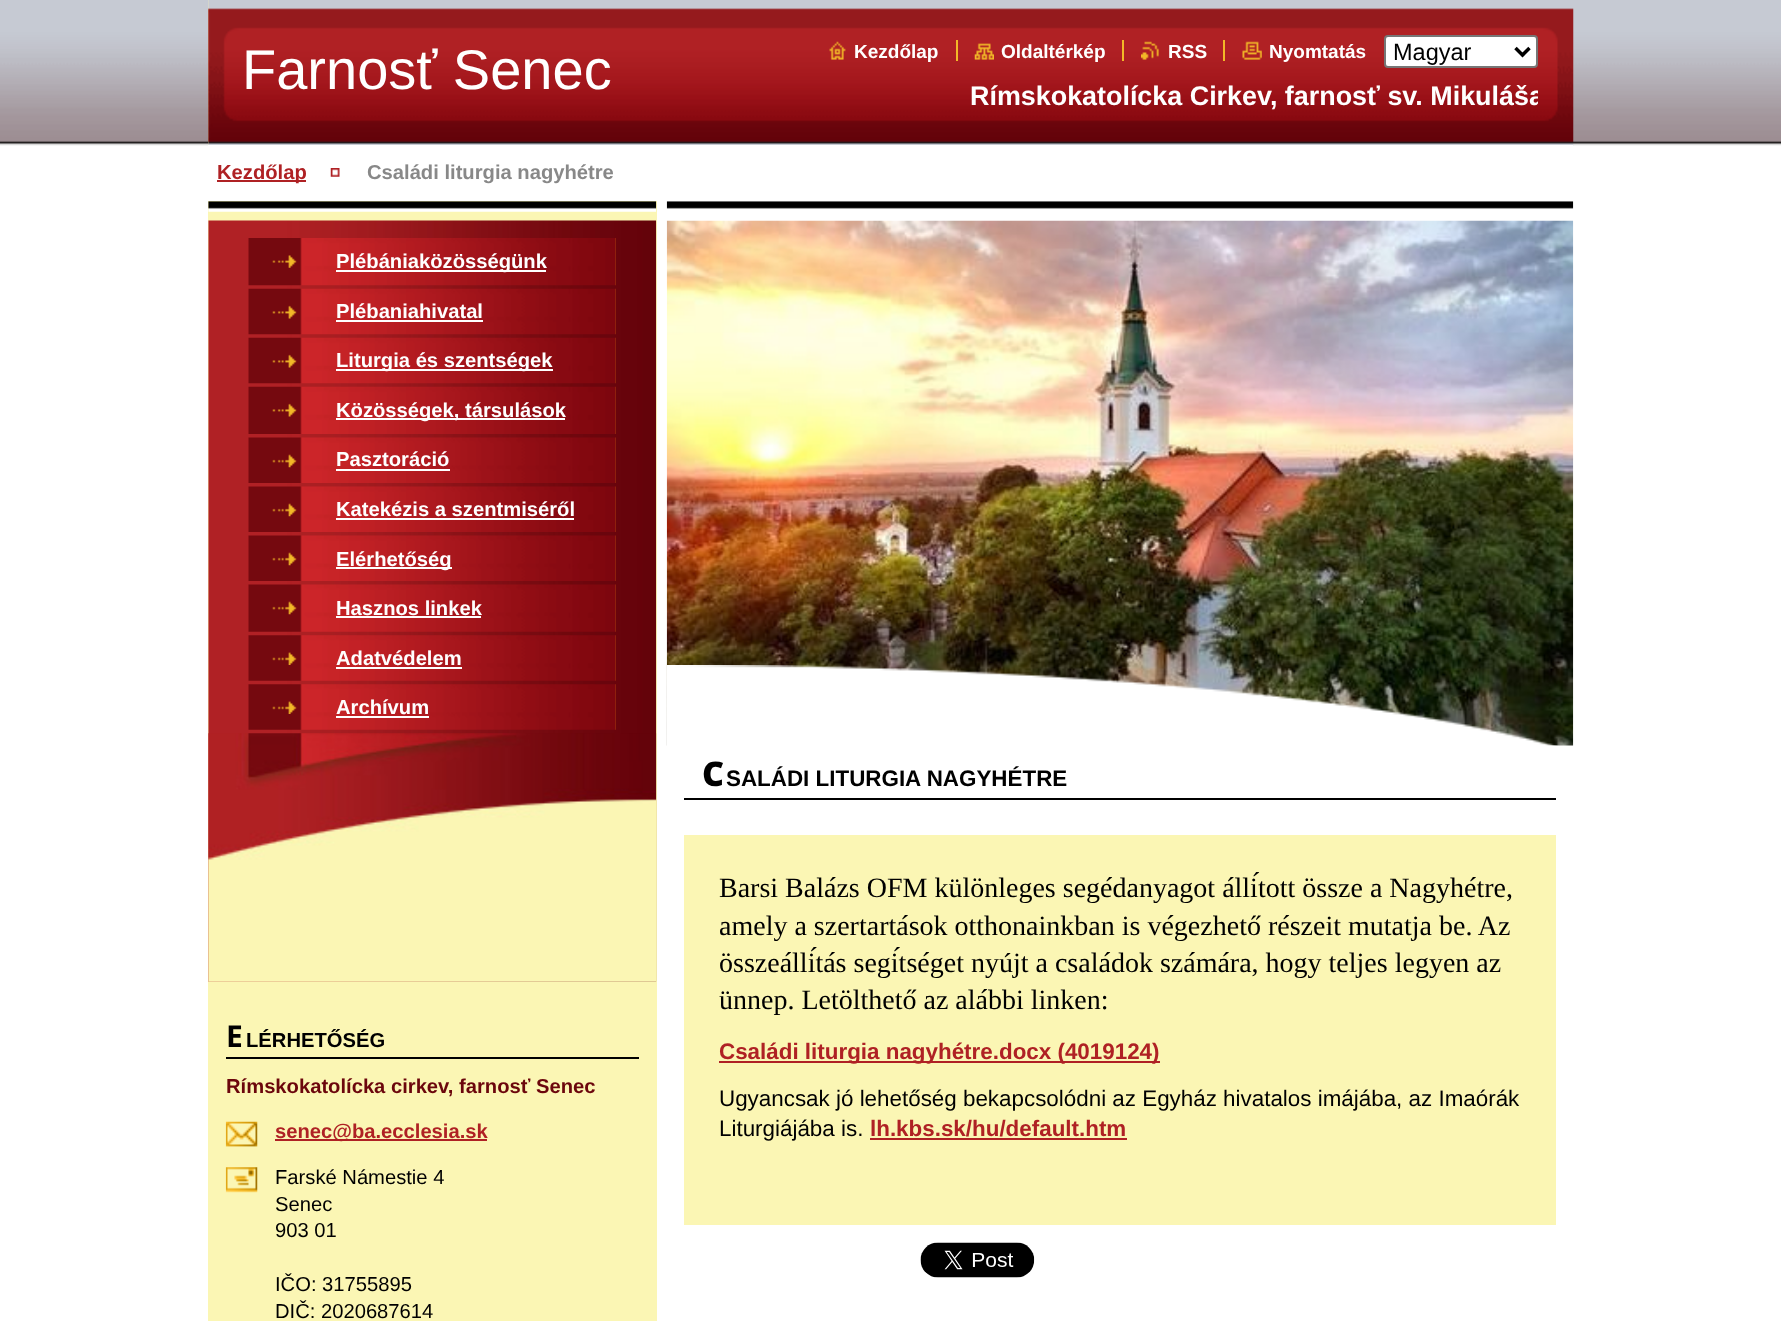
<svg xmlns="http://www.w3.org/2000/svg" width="1781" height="1321">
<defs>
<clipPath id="clip1"><rect x="970" y="79" width="568" height="35"/></clipPath>
</defs>
<rect width="100%" height="100%" fill="#fff"/>
<image x="0" y="0" width="1781" height="146" href="media/1.png"/>
<rect x="208" width="449" height="1321" fill="#fbf6b4"/>
<image x="208" y="0" width="1366" height="146" href="media/2.png"/>
<text x="242" y="89" style="font-family:Liberation Sans;font-size:56px;fill:#fff">Farnosť Senec</text>
<image x="829" y="41" width="17" height="19" href="media/3.png"/>
<text x="854" y="58" style="font-family:Liberation Sans;font-size:19px;font-weight:bold;fill:#fff">Kezdőlap</text>
<image x="974" y="43" width="20" height="17" href="media/4.png"/>
<text x="1001" y="58" style="font-family:Liberation Sans;font-size:19px;font-weight:bold;fill:#fff">Oldaltérkép</text>
<rect x="956" y="40" width="2" height="21" fill="#f2b828"/>
<image x="1141" y="41" width="18" height="19" href="media/5.png"/>
<text x="1168" y="58" style="font-family:Liberation Sans;font-size:19px;font-weight:bold;fill:#fff">RSS</text>
<rect x="1122" y="40" width="2" height="21" fill="#f2b828"/>
<image x="1242" y="41" width="20" height="19" href="media/6.png"/>
<text x="1269" y="58" style="font-family:Liberation Sans;font-size:19px;font-weight:bold;fill:#fff">Nyomtatás</text>
<rect x="1223" y="40" width="2" height="21" fill="#f2b828"/>
<rect x="1385" y="36" width="152" height="31" rx="3" fill="#fff" stroke="#767676" stroke-width="2"/>
<path d="M1515.5 48l7 7l7-7" fill="none" stroke="#000" stroke-width="3.5"/>
<text x="1393" y="60" style="font-family:Liberation Sans;font-size:23.5px;fill:#000">Magyar</text>
<g clip-path="url(#clip1)">
<text x="970" y="105" style="font-family:Liberation Sans;font-size:26.9px;font-weight:bold;fill:#fff">Rímskokatolícka Cirkev, farnosť sv. Mikuláša</text>
</g>
<rect x="208" y="145" width="1365" height="51" fill="#fff"/>
<rect x="217" y="180" width="89" height="2" fill="#af2124"/>
<text x="217" y="179" style="font-family:Liberation Sans;font-size:20.2px;font-weight:bold;fill:#af2124">Kezdőlap</text>
<image x="330" y="168" width="10" height="9" href="media/7.png"/>
<text x="367" y="179" style="font-family:Liberation Sans;font-size:20.2px;font-weight:bold;fill:#888">Családi liturgia nagyhétre</text>
<rect x="208" y="196" width="449" height="5" fill="#fff"/>
<image x="208" y="201" width="449" height="11" href="media/8.png"/>
<image x="208" y="220" width="449" height="762" href="media/9.png"/>
<image x="248" y="238" width="368" height="48" href="media/10.png"/>
<image x="272" y="255" width="25" height="13" href="media/11.png"/>
<rect x="336" y="270" width="210" height="2" fill="#fff"/>
<text x="336" y="268" style="font-family:Liberation Sans;font-size:20.2px;font-weight:bold;fill:#fff">Plébániaközösségünk</text>
<image x="248" y="288" width="368" height="47" href="media/12.png"/>
<image x="272" y="305" width="25" height="14" href="media/13.png"/>
<text x="336" y="318" style="font-family:Liberation Sans;font-size:20.2px;font-weight:bold;fill:#fff">Plébaniahivatal</text>
<rect x="336" y="320" width="147" height="2" fill="#fff"/>
<image x="248" y="337" width="368" height="47" href="media/14.png"/>
<image x="272" y="354" width="25" height="14" href="media/13.png"/>
<rect x="336" y="369" width="217" height="2" fill="#fff"/>
<text x="336" y="367" style="font-family:Liberation Sans;font-size:20.2px;font-weight:bold;fill:#fff">Liturgia és szentségek</text>
<image x="248" y="386" width="368" height="48" href="media/15.png"/>
<image x="272" y="403" width="25" height="14" href="media/13.png"/>
<rect x="336" y="418" width="229" height="2" fill="#fff"/>
<text x="336" y="417" style="font-family:Liberation Sans;font-size:20.2px;font-weight:bold;fill:#fff">Közösségek, társulások</text>
<image x="248" y="437" width="368" height="46" href="media/16.png"/>
<image x="272" y="454" width="25" height="14" href="media/17.png"/>
<text x="336" y="466" style="font-family:Liberation Sans;font-size:20.2px;font-weight:bold;fill:#fff">Pasztoráció</text>
<rect x="336" y="469" width="114" height="2" fill="#fff"/>
<image x="248" y="486" width="368" height="46" href="media/18.png"/>
<image x="272" y="503" width="25" height="14" href="media/17.png"/>
<text x="336" y="516" style="font-family:Liberation Sans;font-size:20.2px;font-weight:bold;fill:#fff">Katekézis a szentmiséről</text>
<rect x="336" y="518" width="238" height="2" fill="#fff"/>
<image x="248" y="535" width="368" height="46" href="media/19.png"/>
<image x="272" y="552" width="25" height="14" href="media/17.png"/>
<rect x="336" y="567" width="116" height="2" fill="#fff"/>
<text x="336" y="566" style="font-family:Liberation Sans;font-size:20.2px;font-weight:bold;fill:#fff">Elérhetőség</text>
<image x="248" y="584" width="368" height="48" href="media/20.png"/>
<image x="272" y="601" width="25" height="14" href="media/17.png"/>
<text x="336" y="615" style="font-family:Liberation Sans;font-size:20.2px;font-weight:bold;fill:#fff">Hasznos linkek</text>
<rect x="336" y="616" width="145" height="2" fill="#fff"/>
<image x="248" y="635" width="368" height="46" href="media/21.png"/>
<image x="272" y="652" width="25" height="13" href="media/22.png"/>
<text x="336" y="665" style="font-family:Liberation Sans;font-size:20.2px;font-weight:bold;fill:#fff">Adatvédelem</text>
<rect x="336" y="667" width="126" height="2" fill="#fff"/>
<image x="248" y="684" width="368" height="46" href="media/23.png"/>
<image x="272" y="701" width="25" height="13" href="media/22.png"/>
<text x="336" y="714" style="font-family:Liberation Sans;font-size:20.2px;font-weight:bold;fill:#fff">Archívum</text>
<rect x="336" y="716" width="93" height="2" fill="#fff"/>
<image x="208" y="733" width="449" height="249" href="media/24.png"/>
<rect x="226" y="1057" width="413" height="2" fill="#000"/>
<text x="226" y="1047" style="font-family:Noto Sans;font-size:30px;font-weight:bold;fill:#000">E</text>
<text x="246" y="1047" style="font-family:Liberation Sans;font-size:20.2px;font-weight:bold;fill:#000">LÉRHETŐSÉG</text>
<text x="226" y="1093" style="font-family:Liberation Sans;font-size:20.2px;font-weight:bold;fill:#6b060c">Rímskokatolícka cirkev, farnosť Senec</text>
<image x="225" y="1121" width="33" height="26" href="media/25.png"/>
<rect x="275" y="1139" width="100" height="2" fill="#af2124"/>
<text x="275" y="1138" style="font-family:Liberation Sans;font-size:20.2px;font-weight:bold;fill:#af2124">senec@ba.ecclesia.sk</text>
<rect x="375" y="1139" width="112" height="2" fill="#af2124"/>
<image x="225" y="1167" width="33" height="26" href="media/26.png"/>
<text x="275" y="1184" style="font-family:Liberation Sans;font-size:20.2px;fill:#000">Farské Námestie 4</text>
<text x="275" y="1211" style="font-family:Liberation Sans;font-size:20.2px;fill:#000">Senec</text>
<text x="275" y="1237" style="font-family:Liberation Sans;font-size:20.2px;fill:#000">903 01</text>
<text x="275" y="1291" style="font-family:Liberation Sans;font-size:20.2px;fill:#000">IČO: 31755895</text>
<text x="275" y="1318" style="font-family:Liberation Sans;font-size:20.2px;fill:#000">DIČ: 2020687614</text>
<image x="666" y="201" width="908" height="8" href="media/27.png"/>
<image x="666" y="220" width="908" height="526" href="media/28.png"/>
<image x="667" y="665" width="892" height="81" href="media/29.png"/>
<rect x="684" y="798" width="872" height="2" fill="#000"/>
<text x="702" y="786" style="font-family:Noto Sans;font-size:34px;font-weight:900;fill:#000">C</text>
<text x="726" y="786" style="font-family:Liberation Sans;font-size:22.4px;font-weight:bold;fill:#000">SALÁDI LITURGIA NAGYHÉTRE</text>
<rect x="684" y="835" width="872" height="390" fill="#fbf6b4"/>
<text x="719" y="897" style="font-family:Liberation Serif;font-size:28px;fill:#000">Barsi Balázs OFM különleges segédanyagot állított össze a Nagyhétre,</text>
<text x="719" y="935" style="font-family:Liberation Serif;font-size:28px;fill:#000">amely a szertartások otthonainkban is végezhető részeit mutatja be. Az</text>
<text x="719" y="972" style="font-family:Liberation Serif;font-size:28px;fill:#000">összeállítás segítséget nyújt a családok számára, hogy teljes legyen az</text>
<text x="719" y="1009" style="font-family:Liberation Serif;font-size:28px;fill:#000">ünnep. Letölthető az alábbi linken:</text>
<rect x="719" y="1061" width="441" height="2" fill="#af2124"/>
<text x="719" y="1059" style="font-family:Liberation Sans;font-size:22.4px;font-weight:bold;fill:#af2124">Családi liturgia nagyhétre.docx (4019124)</text>
<text x="719" y="1106" style="font-family:Liberation Sans;font-size:22.4px;fill:#000">Ugyancsak jó lehetőség bekapcsolódni az Egyház hivatalos imájába, az Imaórák</text>
<text x="719" y="1136" style="font-family:Liberation Sans;font-size:22.4px;fill:#000">Liturgiájába is.</text>
<text x="870" y="1136" style="font-family:Liberation Sans;font-size:22.4px;font-weight:bold;fill:#af2124">lh.kbs.sk/hu/default.htm</text>
<rect x="870" y="1138" width="257" height="2" fill="#af2124"/>
<image x="920" y="1242" width="115" height="36" href="media/30.png"/>
</svg>
